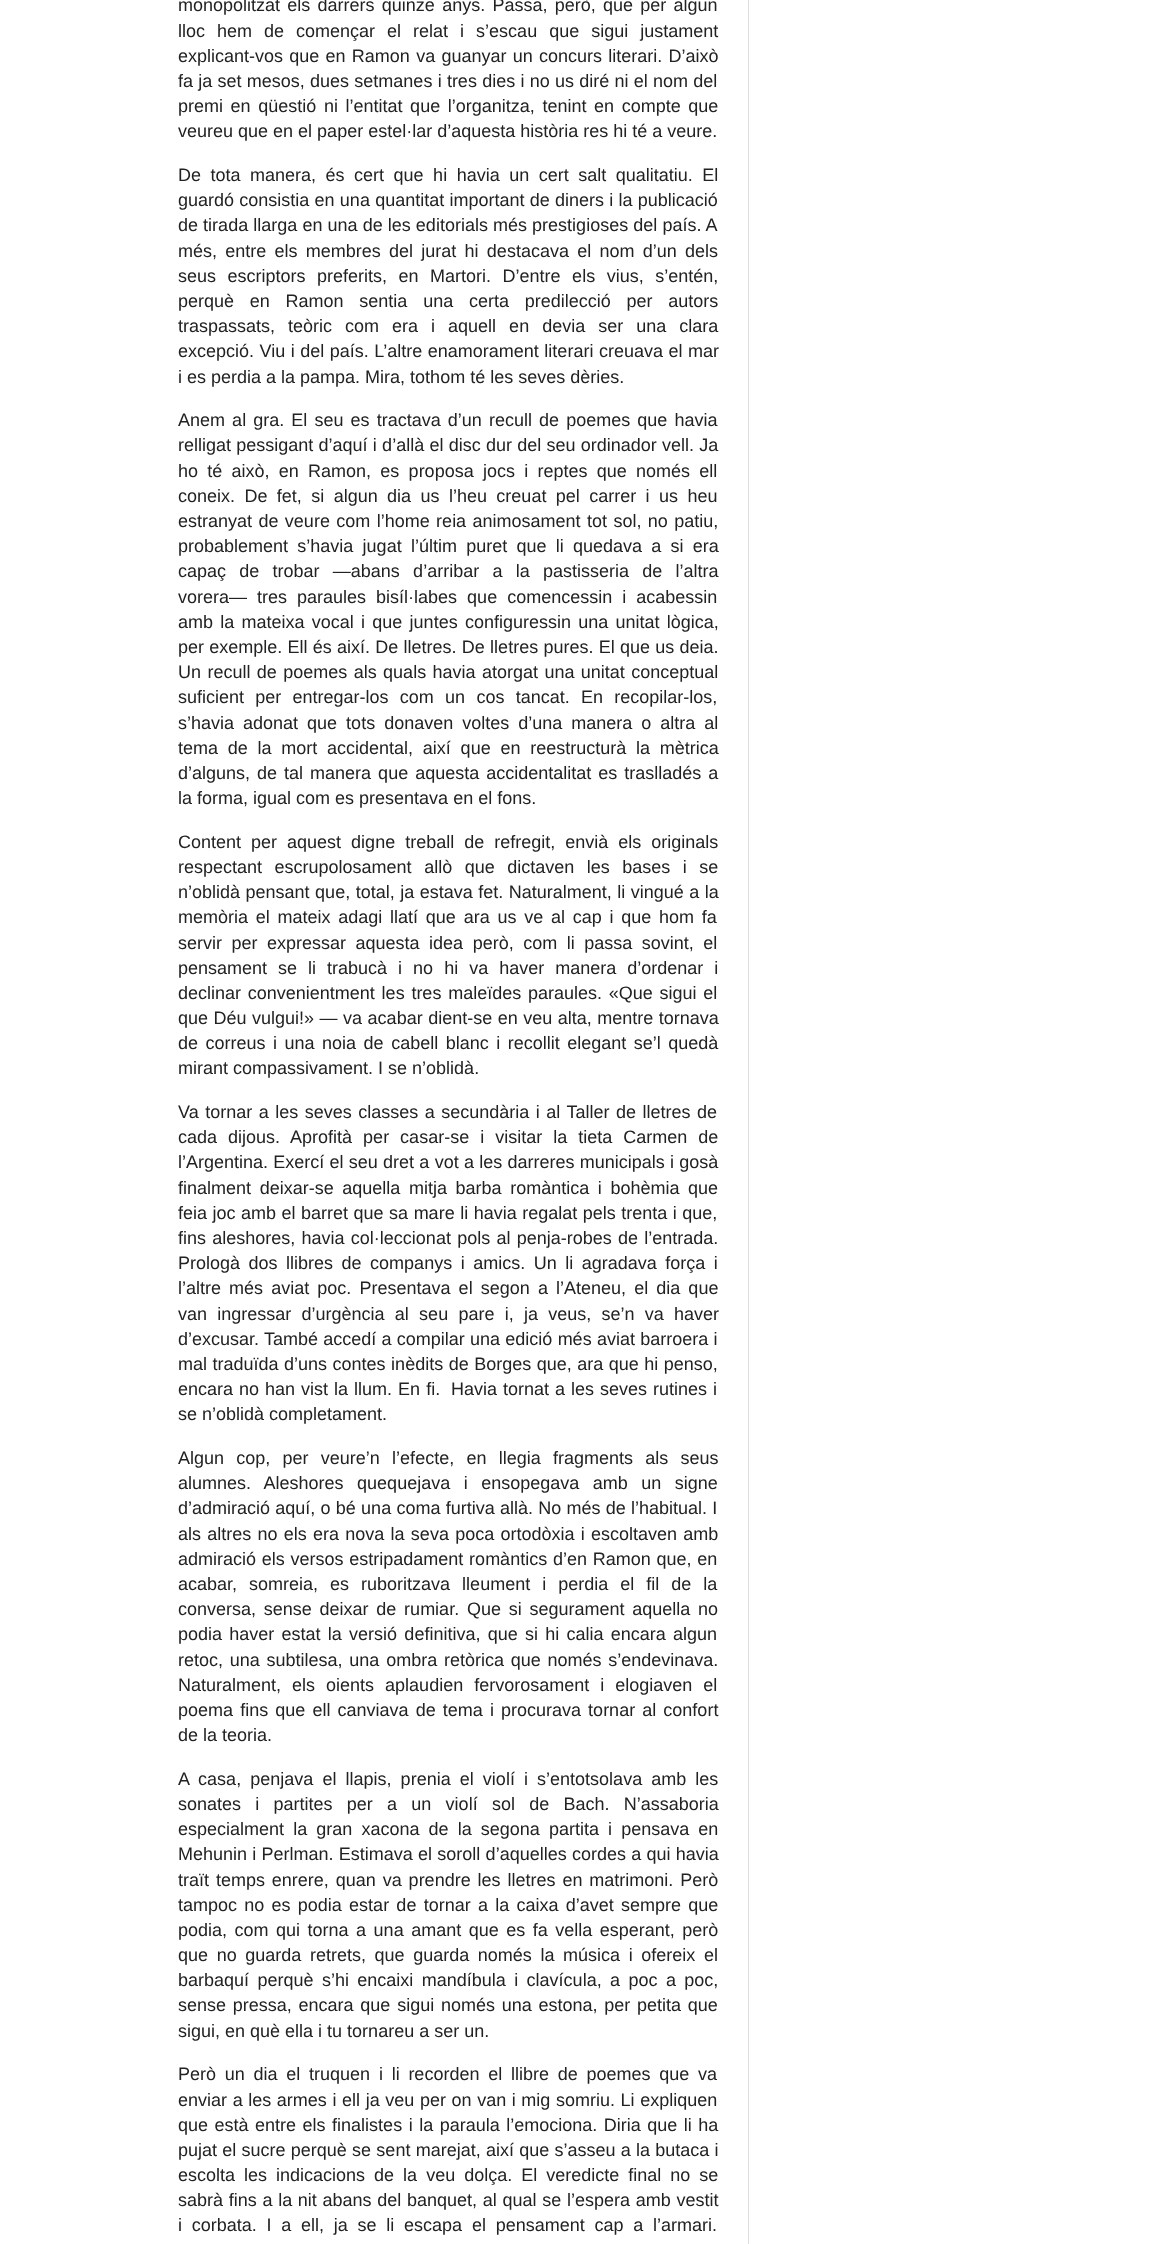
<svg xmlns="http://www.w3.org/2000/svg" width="1155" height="2244">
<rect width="100%" height="100%" fill="#fff"/>
<text x="178" y="11" word-spacing="2.25" style="font-family:Liberation Sans;font-size:18px;fill:#222">monopolitzat els darrers quinze anys. Passa, però, que per algun</text>
<text x="178" y="37" word-spacing="7" style="font-family:Liberation Sans;font-size:18px;fill:#222">lloc hem de començar el relat i s’escau que sigui justament</text>
<text x="178" y="62" word-spacing="1.25" style="font-family:Liberation Sans;font-size:18px;fill:#222">explicant-vos que en Ramon va guanyar un concurs literari. D’això</text>
<text x="178" y="87" word-spacing="0.25" style="font-family:Liberation Sans;font-size:18px;fill:#222">fa ja set mesos, dues setmanes i tres dies i no us diré ni el nom del</text>
<text x="178" y="112" word-spacing="2.6" style="font-family:Liberation Sans;font-size:18px;fill:#222">premi en qüestió ni l’entitat que l’organitza, tenint en compte que</text>
<text x="178" y="137" style="font-family:Liberation Sans;font-size:18px;fill:#222">veureu que en el paper estel·lar d’aquesta història res hi té a veure.</text>
<text x="178" y="181" word-spacing="4.5" style="font-family:Liberation Sans;font-size:18px;fill:#222">De tota manera, és cert que hi havia un cert salt qualitatiu. El</text>
<text x="178" y="206" word-spacing="0.25" style="font-family:Liberation Sans;font-size:18px;fill:#222">guardó consistia en una quantitat important de diners i la publicació</text>
<text x="178" y="231" word-spacing="0.1" style="font-family:Liberation Sans;font-size:18px;fill:#222">de tirada llarga en una de les editorials més prestigioses del país. A</text>
<text x="178" y="257" word-spacing="3.25" style="font-family:Liberation Sans;font-size:18px;fill:#222">més, entre els membres del jurat hi destacava el nom d’un dels</text>
<text x="178" y="282" word-spacing="6.5" style="font-family:Liberation Sans;font-size:18px;fill:#222">seus escriptors preferits, en Martori. D’entre els vius, s’entén,</text>
<text x="178" y="307" word-spacing="10.75" style="font-family:Liberation Sans;font-size:18px;fill:#222">perquè en Ramon sentia una certa predilecció per autors</text>
<text x="178" y="332" word-spacing="8" style="font-family:Liberation Sans;font-size:18px;fill:#222">traspassats, teòric com era i aquell en devia ser una clara</text>
<text x="178" y="357" word-spacing="0.5" style="font-family:Liberation Sans;font-size:18px;fill:#222">excepció. Viu i del país. L’altre enamorament literari creuava el mar</text>
<text x="178" y="383" style="font-family:Liberation Sans;font-size:18px;fill:#222">i es perdia a la pampa. Mira, tothom té les seves dèries.</text>
<text x="178" y="426" word-spacing="2.1" style="font-family:Liberation Sans;font-size:18px;fill:#222">Anem al gra. El seu es tractava d’un recull de poemes que havia</text>
<text x="178" y="451" word-spacing="0.25" style="font-family:Liberation Sans;font-size:18px;fill:#222">relligat pessigant d’aquí i d’allà el disc dur del seu ordinador vell. Ja</text>
<text x="178" y="477" word-spacing="4.25" style="font-family:Liberation Sans;font-size:18px;fill:#222">ho té això, en Ramon, es proposa jocs i reptes que només ell</text>
<text x="178" y="502" word-spacing="4.4" style="font-family:Liberation Sans;font-size:18px;fill:#222">coneix. De fet, si algun dia us l’heu creuat pel carrer i us heu</text>
<text x="178" y="527" word-spacing="1.4" style="font-family:Liberation Sans;font-size:18px;fill:#222">estranyat de veure com l’home reia animosament tot sol, no patiu,</text>
<text x="178" y="552" word-spacing="4.25" style="font-family:Liberation Sans;font-size:18px;fill:#222">probablement s’havia jugat l’últim puret que li quedava a si era</text>
<text x="178" y="577" word-spacing="8.25" style="font-family:Liberation Sans;font-size:18px;fill:#222">capaç de trobar ―abans d’arribar a la pastisseria de l’altra</text>
<text x="178" y="603" word-spacing="5" style="font-family:Liberation Sans;font-size:18px;fill:#222">vorera― tres paraules bisíl·labes que comencessin i acabessin</text>
<text x="178" y="628" word-spacing="2.25" style="font-family:Liberation Sans;font-size:18px;fill:#222">amb la mateixa vocal i que juntes configuressin una unitat lògica,</text>
<text x="178" y="653" word-spacing="0.25" style="font-family:Liberation Sans;font-size:18px;fill:#222">per exemple. Ell és així. De lletres. De lletres pures. El que us deia.</text>
<text x="178" y="678" word-spacing="1.4" style="font-family:Liberation Sans;font-size:18px;fill:#222">Un recull de poemes als quals havia atorgat una unitat conceptual</text>
<text x="178" y="703" word-spacing="6.25" style="font-family:Liberation Sans;font-size:18px;fill:#222">suficient per entregar-los com un cos tancat. En recopilar-los,</text>
<text x="178" y="729" word-spacing="4" style="font-family:Liberation Sans;font-size:18px;fill:#222">s’havia adonat que tots donaven voltes d’una manera o altra al</text>
<text x="178" y="754" word-spacing="4.75" style="font-family:Liberation Sans;font-size:18px;fill:#222">tema de la mort accidental, així que en reestructurà la mètrica</text>
<text x="178" y="779" word-spacing="2" style="font-family:Liberation Sans;font-size:18px;fill:#222">d’alguns, de tal manera que aquesta accidentalitat es traslladés a</text>
<text x="178" y="804" style="font-family:Liberation Sans;font-size:18px;fill:#222">la forma, igual com es presentava en el fons.</text>
<text x="178" y="848" word-spacing="5" style="font-family:Liberation Sans;font-size:18px;fill:#222">Content per aquest digne treball de refregit, envià els originals</text>
<text x="178" y="873" word-spacing="7.5" style="font-family:Liberation Sans;font-size:18px;fill:#222">respectant escrupolosament allò que dictaven les bases i se</text>
<text x="178" y="898" word-spacing="0.5" style="font-family:Liberation Sans;font-size:18px;fill:#222">n’oblidà pensant que, total, ja estava fet. Naturalment, li vingué a la</text>
<text x="178" y="923" word-spacing="2.75" style="font-family:Liberation Sans;font-size:18px;fill:#222">memòria el mateix adagi llatí que ara us ve al cap i que hom fa</text>
<text x="178" y="949" word-spacing="4.5" style="font-family:Liberation Sans;font-size:18px;fill:#222">servir per expressar aquesta idea però, com li passa sovint, el</text>
<text x="178" y="974" word-spacing="6" style="font-family:Liberation Sans;font-size:18px;fill:#222">pensament se li trabucà i no hi va haver manera d’ordenar i</text>
<text x="178" y="999" word-spacing="1.75" style="font-family:Liberation Sans;font-size:18px;fill:#222">declinar convenientment les tres maleïdes paraules. «Que sigui el</text>
<text x="178" y="1024" word-spacing="0.5" style="font-family:Liberation Sans;font-size:18px;fill:#222">que Déu vulgui!» ― va acabar dient-se en veu alta, mentre tornava</text>
<text x="178" y="1049" word-spacing="2.5" style="font-family:Liberation Sans;font-size:18px;fill:#222">de correus i una noia de cabell blanc i recollit elegant se’l quedà</text>
<text x="178" y="1074" style="font-family:Liberation Sans;font-size:18px;fill:#222">mirant compassivament. I se n’oblidà.</text>
<text x="178" y="1118" word-spacing="1.5" style="font-family:Liberation Sans;font-size:18px;fill:#222">Va tornar a les seves classes a secundària i al Taller de lletres de</text>
<text x="178" y="1143" word-spacing="6" style="font-family:Liberation Sans;font-size:18px;fill:#222">cada dijous. Aprofità per casar-se i visitar la tieta Carmen de</text>
<text x="178" y="1168" word-spacing="0.25" style="font-family:Liberation Sans;font-size:18px;fill:#222">l’Argentina. Exercí el seu dret a vot a les darreres municipals i gosà</text>
<text x="178" y="1194" word-spacing="3.6" style="font-family:Liberation Sans;font-size:18px;fill:#222">finalment deixar-se aquella mitja barba romàntica i bohèmia que</text>
<text x="178" y="1219" word-spacing="0.5" style="font-family:Liberation Sans;font-size:18px;fill:#222">feia joc amb el barret que sa mare li havia regalat pels trenta i que,</text>
<text x="178" y="1244" word-spacing="1.25" style="font-family:Liberation Sans;font-size:18px;fill:#222">fins aleshores, havia col·leccionat pols al penja-robes de l’entrada.</text>
<text x="178" y="1269" word-spacing="3.5" style="font-family:Liberation Sans;font-size:18px;fill:#222">Prologà dos llibres de companys i amics. Un li agradava força i</text>
<text x="178" y="1294" word-spacing="3.1" style="font-family:Liberation Sans;font-size:18px;fill:#222">l’altre més aviat poc. Presentava el segon a l’Ateneu, el dia que</text>
<text x="178" y="1320" word-spacing="5.25" style="font-family:Liberation Sans;font-size:18px;fill:#222">van ingressar d’urgència al seu pare i, ja veus, se’n va haver</text>
<text x="178" y="1345" word-spacing="0.25" style="font-family:Liberation Sans;font-size:18px;fill:#222">d’excusar. També accedí a compilar una edició més aviat barroera i</text>
<text x="178" y="1370" word-spacing="0.5" style="font-family:Liberation Sans;font-size:18px;fill:#222">mal traduïda d’uns contes inèdits de Borges que, ara que hi penso,</text>
<text x="178" y="1395" word-spacing="1" style="font-family:Liberation Sans;font-size:18px;fill:#222">encara no han vist la llum. En fi.</text>
<text x="451" y="1395" word-spacing="1" style="font-family:Liberation Sans;font-size:18px;fill:#222">Havia tornat a les seves rutines i</text>
<text x="178" y="1420" style="font-family:Liberation Sans;font-size:18px;fill:#222">se n’oblidà completament.</text>
<text x="178" y="1464" word-spacing="7.25" style="font-family:Liberation Sans;font-size:18px;fill:#222">Algun cop, per veure’n l’efecte, en llegia fragments als seus</text>
<text x="178" y="1489" word-spacing="8.5" style="font-family:Liberation Sans;font-size:18px;fill:#222">alumnes. Aleshores quequejava i ensopegava amb un signe</text>
<text x="178" y="1514" word-spacing="0.25" style="font-family:Liberation Sans;font-size:18px;fill:#222">d’admiració aquí, o bé una coma furtiva allà. No més de l’habitual. I</text>
<text x="178" y="1540" word-spacing="1.25" style="font-family:Liberation Sans;font-size:18px;fill:#222">als altres no els era nova la seva poca ortodòxia i escoltaven amb</text>
<text x="178" y="1565" word-spacing="0.75" style="font-family:Liberation Sans;font-size:18px;fill:#222">admiració els versos estripadament romàntics d’en Ramon que, en</text>
<text x="178" y="1590" word-spacing="7" style="font-family:Liberation Sans;font-size:18px;fill:#222">acabar, somreia, es ruboritzava lleument i perdia el fil de la</text>
<text x="178" y="1615" word-spacing="2.75" style="font-family:Liberation Sans;font-size:18px;fill:#222">conversa, sense deixar de rumiar. Que si segurament aquella no</text>
<text x="178" y="1640" word-spacing="2.25" style="font-family:Liberation Sans;font-size:18px;fill:#222">podia haver estat la versió definitiva, que si hi calia encara algun</text>
<text x="178" y="1666" word-spacing="1.75" style="font-family:Liberation Sans;font-size:18px;fill:#222">retoc, una subtilesa, una ombra retòrica que només s’endevinava.</text>
<text x="178" y="1691" word-spacing="6" style="font-family:Liberation Sans;font-size:18px;fill:#222">Naturalment, els oients aplaudien fervorosament i elogiaven el</text>
<text x="178" y="1716" word-spacing="2.1" style="font-family:Liberation Sans;font-size:18px;fill:#222">poema fins que ell canviava de tema i procurava tornar al confort</text>
<text x="178" y="1741" style="font-family:Liberation Sans;font-size:18px;fill:#222">de la teoria.</text>
<text x="178" y="1785" word-spacing="4.1" style="font-family:Liberation Sans;font-size:18px;fill:#222">A casa, penjava el llapis, prenia el violí i s’entotsolava amb les</text>
<text x="178" y="1810" word-spacing="9.25" style="font-family:Liberation Sans;font-size:18px;fill:#222">sonates i partites per a un violí sol de Bach. N’assaboria</text>
<text x="178" y="1835" word-spacing="4.1" style="font-family:Liberation Sans;font-size:18px;fill:#222">especialment la gran xacona de la segona partita i pensava en</text>
<text x="178" y="1860" word-spacing="0.25" style="font-family:Liberation Sans;font-size:18px;fill:#222">Mehunin i Perlman. Estimava el soroll d’aquelles cordes a qui havia</text>
<text x="178" y="1886" word-spacing="1.9" style="font-family:Liberation Sans;font-size:18px;fill:#222">traït temps enrere, quan va prendre les lletres en matrimoni. Però</text>
<text x="178" y="1911" word-spacing="2.25" style="font-family:Liberation Sans;font-size:18px;fill:#222">tampoc no es podia estar de tornar a la caixa d’avet sempre que</text>
<text x="178" y="1936" word-spacing="2.5" style="font-family:Liberation Sans;font-size:18px;fill:#222">podia, com qui torna a una amant que es fa vella esperant, però</text>
<text x="178" y="1961" word-spacing="3.6" style="font-family:Liberation Sans;font-size:18px;fill:#222">que no guarda retrets, que guarda només la música i ofereix el</text>
<text x="178" y="1986" word-spacing="3.4" style="font-family:Liberation Sans;font-size:18px;fill:#222">barbaquí perquè s’hi encaixi mandíbula i clavícula, a poc a poc,</text>
<text x="178" y="2011" word-spacing="1.75" style="font-family:Liberation Sans;font-size:18px;fill:#222">sense pressa, encara que sigui només una estona, per petita que</text>
<text x="178" y="2037" style="font-family:Liberation Sans;font-size:18px;fill:#222">sigui, en què ella i tu tornareu a ser un.</text>
<text x="178" y="2080" word-spacing="3.75" style="font-family:Liberation Sans;font-size:18px;fill:#222">Però un dia el truquen i li recorden el llibre de poemes que va</text>
<text x="178" y="2106" word-spacing="0.6" style="font-family:Liberation Sans;font-size:18px;fill:#222">enviar a les armes i ell ja veu per on van i mig somriu. Li expliquen</text>
<text x="178" y="2131" word-spacing="1.5" style="font-family:Liberation Sans;font-size:18px;fill:#222">que està entre els finalistes i la paraula l’emociona. Diria que li ha</text>
<text x="178" y="2156" word-spacing="0.25" style="font-family:Liberation Sans;font-size:18px;fill:#222">pujat el sucre perquè se sent marejat, així que s’asseu a la butaca i</text>
<text x="178" y="2181" word-spacing="4" style="font-family:Liberation Sans;font-size:18px;fill:#222">escolta les indicacions de la veu dolça. El veredicte final no se</text>
<text x="178" y="2206" word-spacing="0.7" style="font-family:Liberation Sans;font-size:18px;fill:#222">sabrà fins a la nit abans del banquet, al qual se l’espera amb vestit</text>
<text x="178" y="2231" word-spacing="4.75" style="font-family:Liberation Sans;font-size:18px;fill:#222">i corbata. I a ell, ja se li escapa el pensament cap a l’armari.</text>
<rect x="748" width="1" height="2244" fill="#ddd"/>
</svg>
